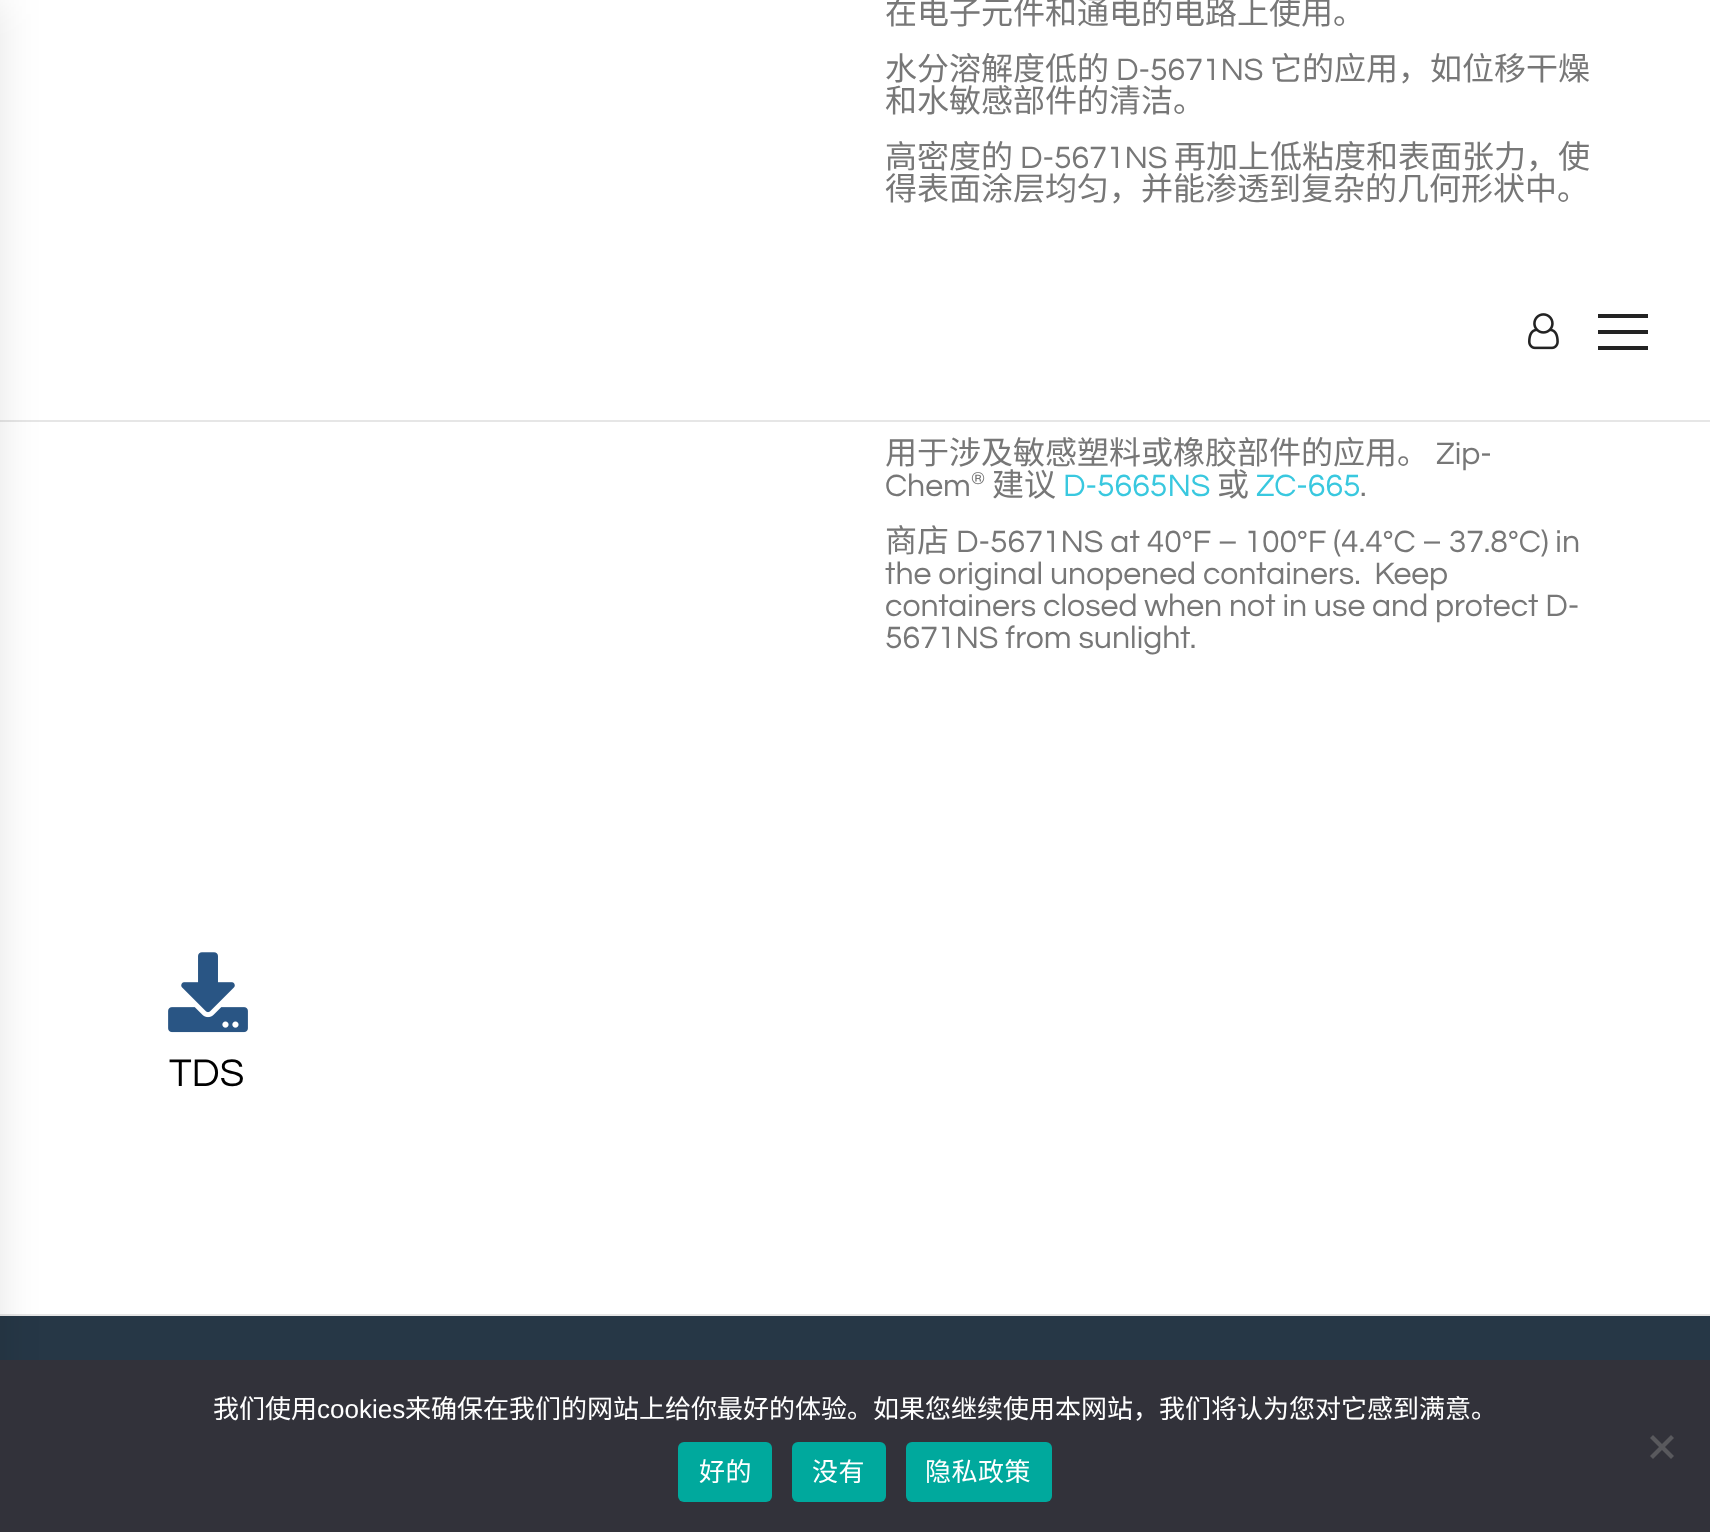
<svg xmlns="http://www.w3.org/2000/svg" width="1710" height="1532">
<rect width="100%" height="100%" fill="#fff"/>
<rect y="1316" width="1710" height="44" fill="#263746"/>
<rect y="1314" width="1710" height="2" fill="#e6e6e6"/>
<rect y="420" width="1710" height="2" fill="#e6e6e6"/>
<rect x="-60" width="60" height="1532" fill="#0000001a" filter="blur(20px)"/>
<text x="885" y="24" style="font-family:Noto Sans CJK SC;font-size:32px;fill:#777">在电子元件和通电的电路上使用。</text>
<text x="885" y="80" style="font-family:Noto Sans CJK SC;font-size:32px;fill:#777">水分溶解度低的</text>
<text x="1116" y="80" style="font-family:Questrial;font-size:32px;fill:#777">D-5671NS</text>
<text x="1270" y="80" style="font-family:Noto Sans CJK SC;font-size:32px;fill:#777">它的应用，如位移干燥</text>
<text x="885" y="112" style="font-family:Noto Sans CJK SC;font-size:32px;fill:#777">和水敏感部件的清洁。</text>
<text x="885" y="168" style="font-family:Noto Sans CJK SC;font-size:32px;fill:#777">高密度的</text>
<text x="1020" y="168" style="font-family:Questrial;font-size:32px;fill:#777">D-5671NS</text>
<text x="1174" y="168" style="font-family:Noto Sans CJK SC;font-size:32px;fill:#777">再加上低粘度和表面张力，使</text>
<text x="885" y="200" style="font-family:Noto Sans CJK SC;font-size:32px;fill:#777">得表面涂层均匀，并能渗透到复杂的几何形状中。</text>
<text x="885" y="464" style="font-family:Noto Sans CJK SC;font-size:32px;fill:#777">用于涉及敏感塑料或橡胶部件的应用。</text>
<text x="1436" y="464" style="font-family:Questrial;font-size:32px;fill:#777">Zip-</text>
<text x="885" y="496" style="font-family:Questrial;font-size:32px;fill:#777">Chem</text>
<text x="971" y="484" style="font-family:Questrial;font-size:18px;fill:#777">®</text>
<text x="992" y="496" style="font-family:Noto Sans CJK SC;font-size:32px;fill:#777">建议</text>
<text x="1063" y="496" style="font-family:Questrial;font-size:32px;fill:#39c8df">D-5665NS</text>
<text x="1217" y="496" style="font-family:Noto Sans CJK SC;font-size:32px;fill:#777">或</text>
<text x="1256" y="496" style="font-family:Questrial;font-size:32px;fill:#39c8df">ZC-665</text>
<text x="1360" y="496" style="font-family:Questrial;font-size:32px;fill:#777">.</text>
<text x="885" y="552" style="font-family:Noto Sans CJK SC;font-size:32px;fill:#777">商店</text>
<text x="956" y="552" style="font-family:Questrial;font-size:32px;fill:#777">D-5671NS at 40°F – 100°F (4.4°C – 37.8°C) in</text>
<text x="885" y="584" style="font-family:Questrial;font-size:32px;fill:#777" xml:space="preserve">the original unopened containers.  Keep</text>
<text x="885" y="616" style="font-family:Questrial;font-size:32px;fill:#777">containers closed when not in use and protect D-</text>
<text x="885" y="648" style="font-family:Questrial;font-size:32px;fill:#777">5671NS from sunlight.</text>
<image x="168" y="952" width="80" height="81" href="media/1.png"/>
<text x="169" y="1086" style="font-family:Questrial;font-size:40px;fill:#000">TDS</text>
<image x="1528" y="313" width="31" height="37" href="media/2.png"/>
<rect x="1598" y="330" width="50" height="4" fill="#232323"/>
<rect x="1598" y="314" width="50" height="4" fill="#232323"/>
<rect x="1598" y="346" width="50" height="4" fill="#232323"/>
<rect y="1360" width="1710" height="172" fill="#32323a"/>
<text x="213" y="1418" style="font-family:Noto Sans CJK SC;font-size:26px;fill:#fff">我们使用</text>
<text x="317" y="1418" style="font-family:Liberation Sans;font-size:26px;fill:#fff">cookies</text>
<text x="405" y="1418" style="font-family:Noto Sans CJK SC;font-size:26px;fill:#fff">来确保在我们的网站上给你最好的体验。如果您继续使用本网站，我们将认为您对它感到满意。</text>
<path d="M1671 1435l3 3l-21 21l-3-3z" fill="#59595d"/>
<path d="M1650 1438l3-3l21 21l-3 3z" fill="#59595d"/>
<rect x="678" y="1442" width="94" height="60" rx="6" fill="#00a99d"/>
<text x="699" y="1481" style="font-family:Noto Sans CJK SC;font-size:26px;letter-spacing:0.5px;fill:#fff">好的</text>
<rect x="792" y="1442" width="94" height="60" rx="6" fill="#00a99d"/>
<text x="812" y="1481" style="font-family:Noto Sans CJK SC;font-size:26px;letter-spacing:0.5px;fill:#fff">没有</text>
<rect x="906" y="1442" width="146" height="60" rx="6" fill="#00a99d"/>
<text x="925" y="1481" style="font-family:Noto Sans CJK SC;font-size:26px;letter-spacing:0.5px;fill:#fff">隐私政策</text>
</svg>
